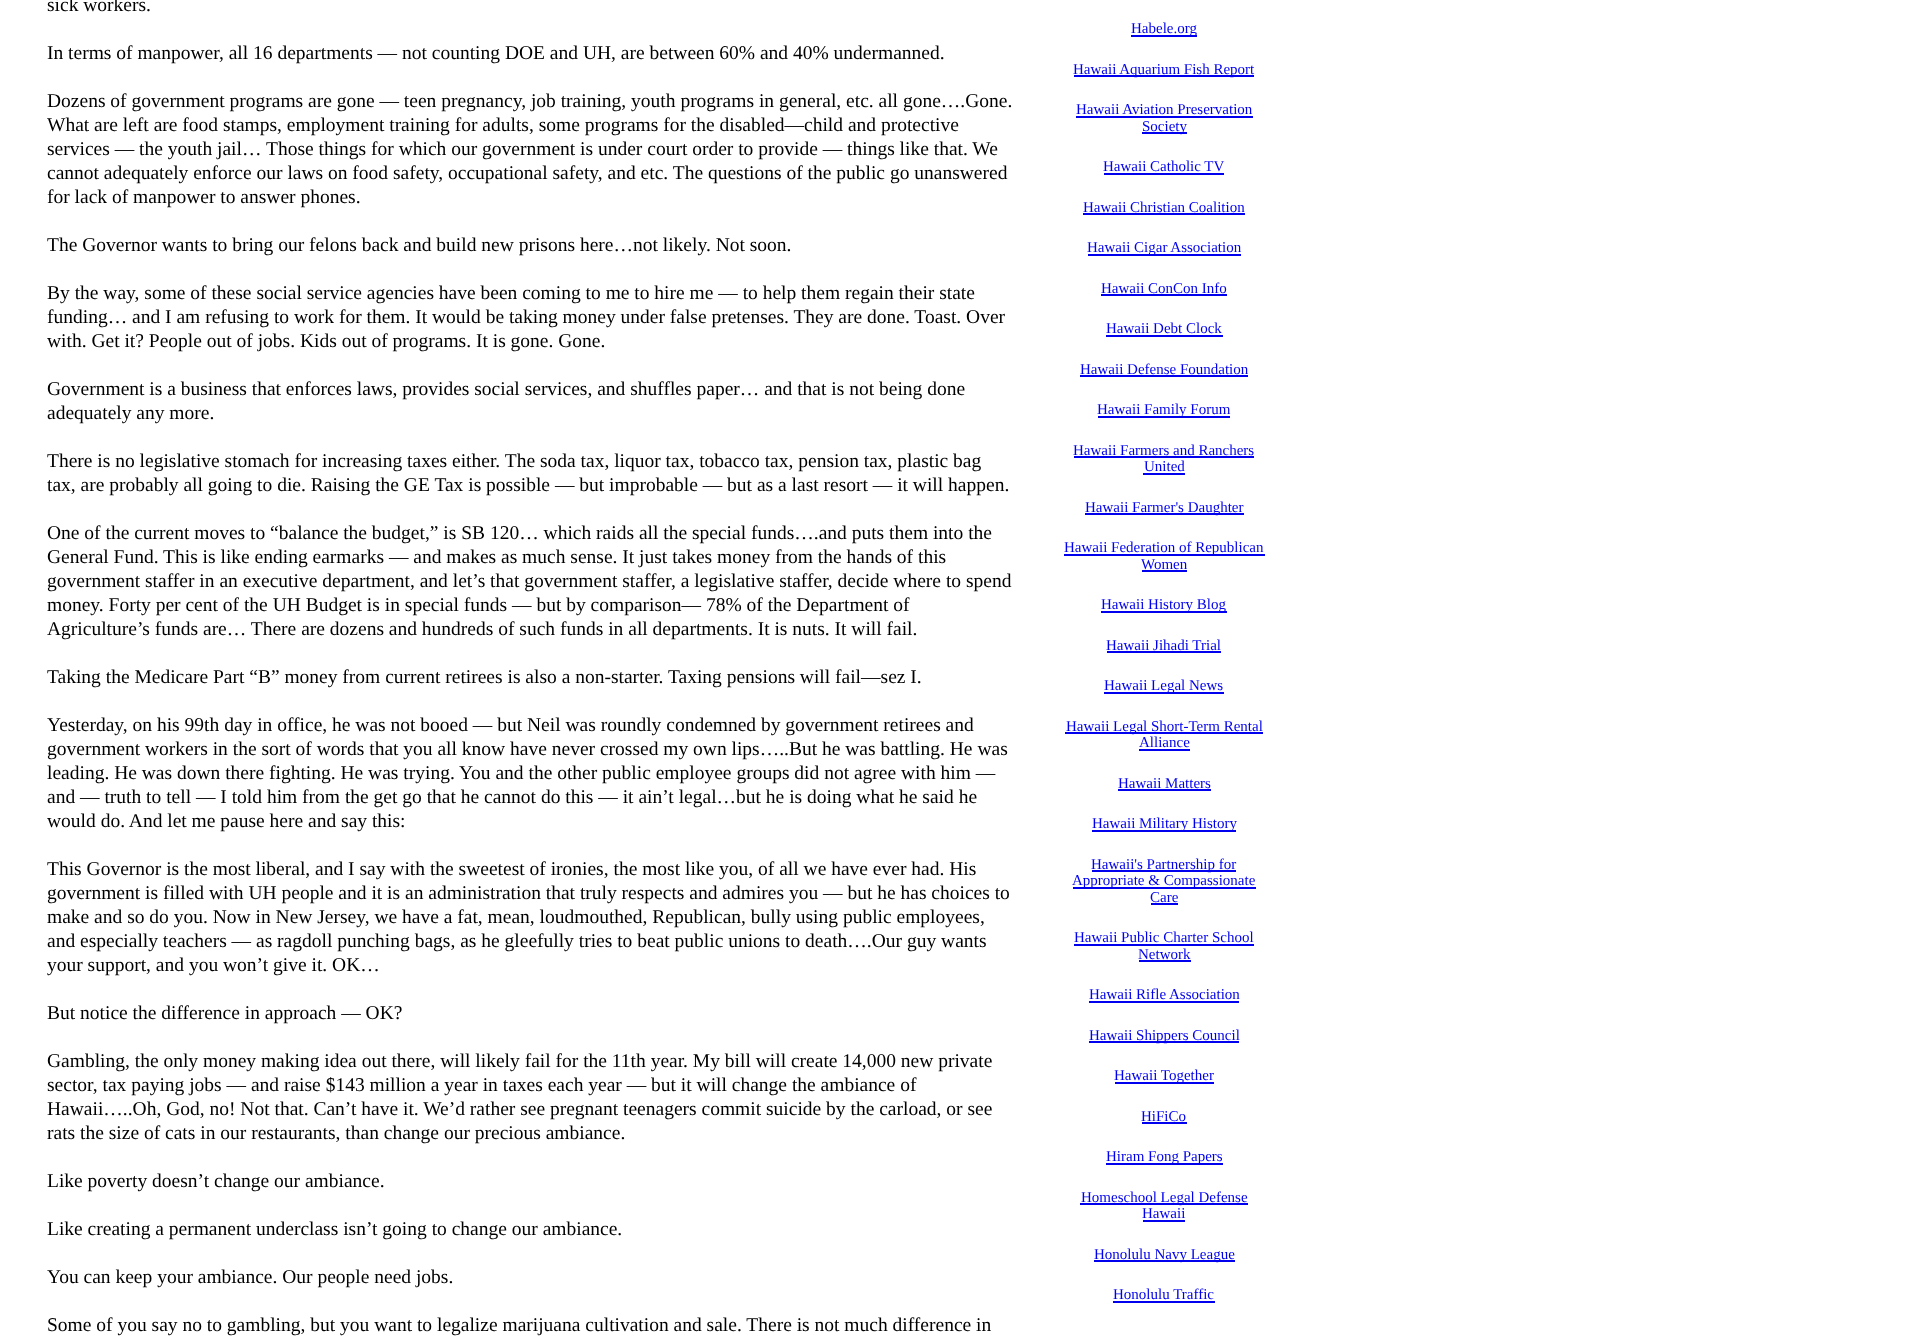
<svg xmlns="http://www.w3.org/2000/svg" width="1923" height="1336">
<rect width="100%" height="100%" fill="#fff"/>
<text x="47" y="11" style="font-family:Liberation Serif;font-size:19.5px;fill:#000">sick workers.</text>
<text x="47" y="59" style="font-family:Liberation Serif;font-size:19.5px;fill:#000">In terms of manpower, all 16 departments — not counting DOE and UH, are between 60% and 40% undermanned.</text>
<text x="47" y="107" style="font-family:Liberation Serif;font-size:19.5px;fill:#000">Dozens of government programs are gone — teen pregnancy, job training, youth programs in general, etc. all gone….Gone.</text>
<text x="47" y="131" style="font-family:Liberation Serif;font-size:19.5px;fill:#000">What are left are food stamps, employment training for adults, some programs for the disabled—child and protective</text>
<text x="47" y="155" style="font-family:Liberation Serif;font-size:19.5px;fill:#000">services — the youth jail… Those things for which our government is under court order to provide — things like that. We</text>
<text x="47" y="179" style="font-family:Liberation Serif;font-size:19.5px;fill:#000">cannot adequately enforce our laws on food safety, occupational safety, and etc. The questions of the public go unanswered</text>
<text x="47" y="203" style="font-family:Liberation Serif;font-size:19.5px;fill:#000">for lack of manpower to answer phones.</text>
<text x="47" y="251" style="font-family:Liberation Serif;font-size:19.5px;fill:#000">The Governor wants to bring our felons back and build new prisons here…not likely. Not soon.</text>
<text x="47" y="299" style="font-family:Liberation Serif;font-size:19.5px;fill:#000">By the way, some of these social service agencies have been coming to me to hire me — to help them regain their state</text>
<text x="47" y="323" style="font-family:Liberation Serif;font-size:19.5px;fill:#000">funding… and I am refusing to work for them. It would be taking money under false pretenses. They are done. Toast. Over</text>
<text x="47" y="347" style="font-family:Liberation Serif;font-size:19.5px;fill:#000">with. Get it? People out of jobs. Kids out of programs. It is gone. Gone.</text>
<text x="47" y="395" style="font-family:Liberation Serif;font-size:19.5px;fill:#000">Government is a business that enforces laws, provides social services, and shuffles paper… and that is not being done</text>
<text x="47" y="419" style="font-family:Liberation Serif;font-size:19.5px;fill:#000">adequately any more.</text>
<text x="47" y="467" style="font-family:Liberation Serif;font-size:19.5px;fill:#000">There is no legislative stomach for increasing taxes either. The soda tax, liquor tax, tobacco tax, pension tax, plastic bag</text>
<text x="47" y="491" style="font-family:Liberation Serif;font-size:19.5px;fill:#000">tax, are probably all going to die. Raising the GE Tax is possible — but improbable — but as a last resort — it will happen.</text>
<text x="47" y="539" style="font-family:Liberation Serif;font-size:19.5px;fill:#000">One of the current moves to “balance the budget,” is SB 120… which raids all the special funds….and puts them into the</text>
<text x="47" y="563" style="font-family:Liberation Serif;font-size:19.5px;fill:#000">General Fund. This is like ending earmarks — and makes as much sense. It just takes money from the hands of this</text>
<text x="47" y="587" style="font-family:Liberation Serif;font-size:19.5px;fill:#000">government staffer in an executive department, and let’s that government staffer, a legislative staffer, decide where to spend</text>
<text x="47" y="611" style="font-family:Liberation Serif;font-size:19.5px;fill:#000">money. Forty per cent of the UH Budget is in special funds — but by comparison— 78% of the Department of</text>
<text x="47" y="635" style="font-family:Liberation Serif;font-size:19.5px;fill:#000">Agriculture’s funds are… There are dozens and hundreds of such funds in all departments. It is nuts. It will fail.</text>
<text x="47" y="683" style="font-family:Liberation Serif;font-size:19.5px;fill:#000">Taking the Medicare Part “B” money from current retirees is also a non-starter. Taxing pensions will fail—sez I.</text>
<text x="47" y="731" style="font-family:Liberation Serif;font-size:19.5px;fill:#000">Yesterday, on his 99th day in office, he was not booed — but Neil was roundly condemned by government retirees and</text>
<text x="47" y="755" style="font-family:Liberation Serif;font-size:19.5px;fill:#000">government workers in the sort of words that you all know have never crossed my own lips…..But he was battling. He was</text>
<text x="47" y="779" style="font-family:Liberation Serif;font-size:19.5px;fill:#000">leading. He was down there fighting. He was trying. You and the other public employee groups did not agree with him —</text>
<text x="47" y="803" style="font-family:Liberation Serif;font-size:19.5px;fill:#000">and — truth to tell — I told him from the get go that he cannot do this — it ain’t legal…but he is doing what he said he</text>
<text x="47" y="827" style="font-family:Liberation Serif;font-size:19.5px;fill:#000">would do. And let me pause here and say this:</text>
<text x="47" y="875" style="font-family:Liberation Serif;font-size:19.5px;fill:#000">This Governor is the most liberal, and I say with the sweetest of ironies, the most like you, of all we have ever had. His</text>
<text x="47" y="899" style="font-family:Liberation Serif;font-size:19.5px;fill:#000">government is filled with UH people and it is an administration that truly respects and admires you — but he has choices to</text>
<text x="47" y="923" style="font-family:Liberation Serif;font-size:19.5px;fill:#000">make and so do you. Now in New Jersey, we have a fat, mean, loudmouthed, Republican, bully using public employees,</text>
<text x="47" y="947" style="font-family:Liberation Serif;font-size:19.5px;fill:#000">and especially teachers — as ragdoll punching bags, as he gleefully tries to beat public unions to death….Our guy wants</text>
<text x="47" y="971" style="font-family:Liberation Serif;font-size:19.5px;fill:#000">your support, and you won’t give it. OK…</text>
<text x="47" y="1019" style="font-family:Liberation Serif;font-size:19.5px;fill:#000">But notice the difference in approach — OK?</text>
<text x="47" y="1067" style="font-family:Liberation Serif;font-size:19.5px;fill:#000">Gambling, the only money making idea out there, will likely fail for the 11th year. My bill will create 14,000 new private</text>
<text x="47" y="1091" style="font-family:Liberation Serif;font-size:19.5px;fill:#000">sector, tax paying jobs — and raise $143 million a year in taxes each year — but it will change the ambiance of</text>
<text x="47" y="1115" style="font-family:Liberation Serif;font-size:19.5px;fill:#000">Hawaii…..Oh, God, no! Not that. Can’t have it. We’d rather see pregnant teenagers commit suicide by the carload, or see</text>
<text x="47" y="1139" style="font-family:Liberation Serif;font-size:19.5px;fill:#000">rats the size of cats in our restaurants, than change our precious ambiance.</text>
<text x="47" y="1187" style="font-family:Liberation Serif;font-size:19.5px;fill:#000">Like poverty doesn’t change our ambiance.</text>
<text x="47" y="1235" style="font-family:Liberation Serif;font-size:19.5px;fill:#000">Like creating a permanent underclass isn’t going to change our ambiance.</text>
<text x="47" y="1283" style="font-family:Liberation Serif;font-size:19.5px;fill:#000">You can keep your ambiance. Our people need jobs.</text>
<text x="47" y="1331" style="font-family:Liberation Serif;font-size:19.5px;fill:#000">Some of you say no to gambling, but you want to legalize marijuana cultivation and sale. There is not much difference in</text>
<rect x="1131" y="35" width="66" height="2" fill="#00e"/>
<text x="1131" y="33" style="font-family:Liberation Serif;font-size:15px;fill:#00e">Habele.org</text>
<rect x="1074" y="75" width="180" height="2" fill="#00e"/>
<text x="1073" y="74" style="font-family:Liberation Serif;font-size:15px;fill:#00e">Hawaii Aquarium Fish Report</text>
<text x="1076" y="114" style="font-family:Liberation Serif;font-size:15px;fill:#00e">Hawaii Aviation Preservation</text>
<rect x="1076" y="116" width="177" height="2" fill="#00e"/>
<rect x="1142" y="132" width="45" height="2" fill="#00e"/>
<text x="1142" y="131" style="font-family:Liberation Serif;font-size:15px;fill:#00e">Society</text>
<text x="1103" y="171" style="font-family:Liberation Serif;font-size:15px;fill:#00e">Hawaii Catholic TV</text>
<rect x="1104" y="173" width="120" height="2" fill="#00e"/>
<text x="1083" y="212" style="font-family:Liberation Serif;font-size:15px;fill:#00e">Hawaii Christian Coalition</text>
<rect x="1083" y="213" width="162" height="2" fill="#00e"/>
<rect x="1088" y="254" width="153" height="2" fill="#00e"/>
<text x="1087" y="252" style="font-family:Liberation Serif;font-size:15px;fill:#00e">Hawaii Cigar Association</text>
<text x="1101" y="293" style="font-family:Liberation Serif;font-size:15px;fill:#00e">Hawaii ConCon Info</text>
<rect x="1101" y="294" width="126" height="2" fill="#00e"/>
<text x="1106" y="333" style="font-family:Liberation Serif;font-size:15px;fill:#00e">Hawaii Debt Clock</text>
<rect x="1106" y="335" width="117" height="2" fill="#00e"/>
<text x="1080" y="374" style="font-family:Liberation Serif;font-size:15px;fill:#00e">Hawaii Defense Foundation</text>
<rect x="1080" y="375" width="168" height="2" fill="#00e"/>
<rect x="1098" y="416" width="132" height="2" fill="#00e"/>
<text x="1097" y="414" style="font-family:Liberation Serif;font-size:15px;fill:#00e">Hawaii Family Forum</text>
<text x="1073" y="455" style="font-family:Liberation Serif;font-size:15px;fill:#00e">Hawaii Farmers and Ranchers</text>
<rect x="1074" y="456" width="180" height="2" fill="#00e"/>
<text x="1144" y="471" style="font-family:Liberation Serif;font-size:15px;fill:#00e">United</text>
<rect x="1143" y="473" width="42" height="2" fill="#00e"/>
<rect x="1085" y="513" width="159" height="2" fill="#00e"/>
<text x="1085" y="512" style="font-family:Liberation Serif;font-size:15px;fill:#00e">Hawaii Farmer's Daughter</text>
<rect x="1064" y="554" width="201" height="2" fill="#00e"/>
<text x="1064" y="552" style="font-family:Liberation Serif;font-size:15px;fill:#00e">Hawaii Federation of Republican</text>
<text x="1141" y="569" style="font-family:Liberation Serif;font-size:15px;fill:#00e">Women</text>
<rect x="1142" y="570" width="45" height="2" fill="#00e"/>
<rect x="1101" y="611" width="126" height="2" fill="#00e"/>
<text x="1101" y="609" style="font-family:Liberation Serif;font-size:15px;fill:#00e">Hawaii History Blog</text>
<text x="1106" y="650" style="font-family:Liberation Serif;font-size:15px;fill:#00e">Hawaii Jihadi Trial</text>
<rect x="1107" y="651" width="114" height="2" fill="#00e"/>
<rect x="1104" y="692" width="120" height="2" fill="#00e"/>
<text x="1104" y="690" style="font-family:Liberation Serif;font-size:15px;fill:#00e">Hawaii Legal News</text>
<rect x="1065" y="732" width="198" height="2" fill="#00e"/>
<text x="1066" y="731" style="font-family:Liberation Serif;font-size:15px;fill:#00e">Hawaii Legal Short-Term Rental</text>
<text x="1139" y="747" style="font-family:Liberation Serif;font-size:15px;fill:#00e">Alliance</text>
<rect x="1139" y="749" width="51" height="2" fill="#00e"/>
<text x="1118" y="788" style="font-family:Liberation Serif;font-size:15px;fill:#00e">Hawaii Matters</text>
<rect x="1118" y="789" width="93" height="2" fill="#00e"/>
<rect x="1092" y="830" width="144" height="2" fill="#00e"/>
<text x="1092" y="828" style="font-family:Liberation Serif;font-size:15px;fill:#00e">Hawaii Military History</text>
<rect x="1092" y="870" width="144" height="2" fill="#00e"/>
<text x="1091" y="869" style="font-family:Liberation Serif;font-size:15px;fill:#00e">Hawaii's Partnership for</text>
<rect x="1073" y="887" width="183" height="2" fill="#00e"/>
<text x="1072" y="885" style="font-family:Liberation Serif;font-size:15px;fill:#00e">Appropriate &amp; Compassionate</text>
<text x="1150" y="902" style="font-family:Liberation Serif;font-size:15px;fill:#00e">Care</text>
<rect x="1151" y="903" width="27" height="2" fill="#00e"/>
<text x="1074" y="942" style="font-family:Liberation Serif;font-size:15px;fill:#00e">Hawaii Public Charter School</text>
<rect x="1074" y="944" width="180" height="2" fill="#00e"/>
<text x="1138" y="959" style="font-family:Liberation Serif;font-size:15px;fill:#00e">Network</text>
<rect x="1139" y="960" width="52" height="2" fill="#00e"/>
<text x="1089" y="999" style="font-family:Liberation Serif;font-size:15px;fill:#00e">Hawaii Rifle Association</text>
<rect x="1089" y="1001" width="150" height="2" fill="#00e"/>
<rect x="1089" y="1041" width="150" height="2" fill="#00e"/>
<text x="1089" y="1040" style="font-family:Liberation Serif;font-size:15px;fill:#00e">Hawaii Shippers Council</text>
<rect x="1115" y="1082" width="99" height="2" fill="#00e"/>
<text x="1114" y="1080" style="font-family:Liberation Serif;font-size:15px;fill:#00e">Hawaii Together</text>
<text x="1141" y="1121" style="font-family:Liberation Serif;font-size:15px;fill:#00e">HiFiCo</text>
<rect x="1142" y="1122" width="45" height="2" fill="#00e"/>
<rect x="1106" y="1163" width="117" height="2" fill="#00e"/>
<text x="1106" y="1161" style="font-family:Liberation Serif;font-size:15px;fill:#00e">Hiram Fong Papers</text>
<rect x="1080" y="1203" width="168" height="2" fill="#00e"/>
<text x="1081" y="1202" style="font-family:Liberation Serif;font-size:15px;fill:#00e">Homeschool Legal Defense</text>
<text x="1142" y="1218" style="font-family:Liberation Serif;font-size:15px;fill:#00e">Hawaii</text>
<rect x="1143" y="1220" width="42" height="2" fill="#00e"/>
<rect x="1094" y="1260" width="141" height="2" fill="#00e"/>
<text x="1094" y="1259" style="font-family:Liberation Serif;font-size:15px;fill:#00e">Honolulu Navy League</text>
<text x="1113" y="1299" style="font-family:Liberation Serif;font-size:15px;fill:#00e">Honolulu Traffic</text>
<rect x="1113" y="1301" width="102" height="2" fill="#00e"/>
</svg>
